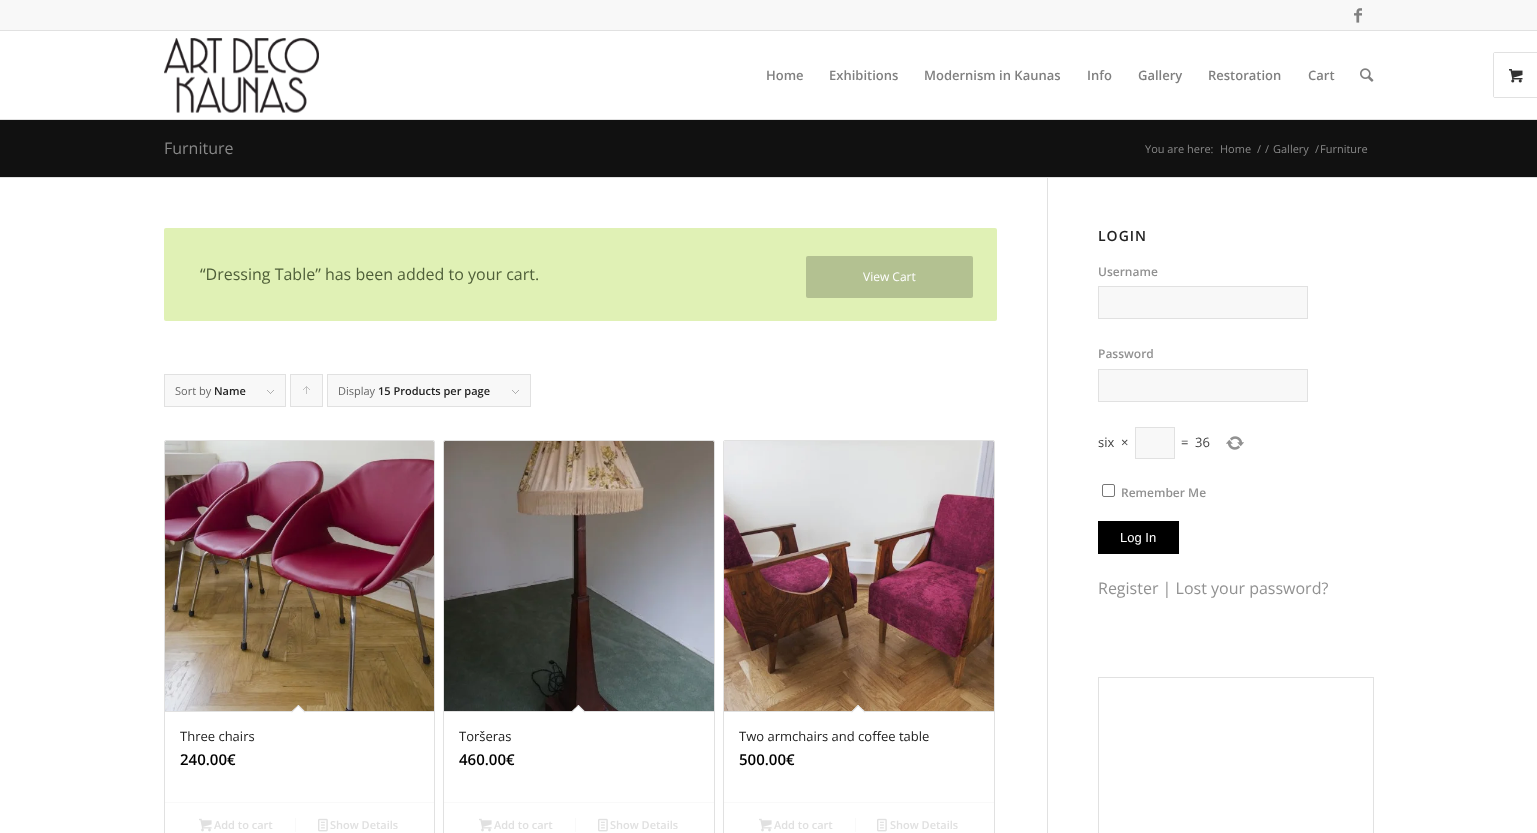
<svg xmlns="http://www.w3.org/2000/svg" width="1537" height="833">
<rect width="100%" height="100%" fill="#fff"/>
<rect width="1537" height="30" fill="#f8f8f8"/>
<rect y="30" width="1537" height="1" fill="#e1e1e1"/>
<image x="1354" y="8" width="8" height="15" href="media/1.png"/>
<rect y="119" width="1537" height="1" fill="#e1e1e1"/>
<image x="164" y="38" width="155" height="75" href="media/2.png"/>
<text x="766" y="80" style="font-family:Open Sans;font-size:13px;font-weight:600;fill:#808080">Home</text>
<text x="829" y="80" style="font-family:Open Sans;font-size:13px;font-weight:600;fill:#808080">Exhibitions</text>
<text x="924" y="80" style="font-family:Open Sans;font-size:13px;font-weight:600;fill:#808080">Modernism in Kaunas</text>
<text x="1087" y="80" style="font-family:Open Sans;font-size:13px;font-weight:600;fill:#808080">Info</text>
<text x="1138" y="80" style="font-family:Open Sans;font-size:13px;font-weight:600;fill:#808080">Gallery</text>
<text x="1208" y="80" style="font-family:Open Sans;font-size:13px;font-weight:600;fill:#808080">Restoration</text>
<text x="1308" y="80" style="font-family:Open Sans;font-size:13px;font-weight:600;fill:#808080">Cart</text>
<image x="1360" y="68" width="14" height="14" href="media/3.png"/>
<rect x="1493.5" y="52.5" width="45" height="45" rx="1.5" fill="none" stroke="#e1e1e1"/>
<rect x="1494" y="53" width="1" height="44" fill="#fff"/>
<image x="1509" y="69" width="14" height="14" href="media/4.png"/>
<rect y="120" width="1537" height="57" fill="#111"/>
<text x="164" y="154" style="font-family:Open Sans;font-size:16px;fill:#888">Furniture</text>
<text x="1145" y="153" style="font-family:Open Sans;font-size:11px;fill:#888">You are here:</text>
<text x="1220" y="153" style="font-family:Open Sans;font-size:11px;fill:#888">Home</text>
<text x="1257" y="153" style="font-family:Open Sans;font-size:11px;fill:#888">/</text>
<text x="1265" y="153" style="font-family:Open Sans;font-size:11px;fill:#888">/</text>
<text x="1273" y="153" style="font-family:Open Sans;font-size:11px;fill:#888">Gallery</text>
<text x="1315" y="153" style="font-family:Open Sans;font-size:11px;fill:#888">/</text>
<text x="1320" y="153" style="font-family:Open Sans;font-size:11px;fill:#888">Furniture</text>
<rect y="177" width="1537" height="1" fill="#e1e1e1"/>
<rect x="1047" y="178" width="1" height="655" fill="#e1e1e1"/>
<rect x="164" y="228" width="833" height="93" rx="2" fill="#e0f1b5"/>
<text x="200" y="280" style="font-family:Open Sans;font-size:16px;fill:#4f5f39">“Dressing Table” has been added to your cart.</text>
<rect x="806" y="256" width="167" height="42" rx="2" fill="#b3c191"/>
<text x="863" y="281" style="font-family:Open Sans;font-size:12px;fill:#fff">View Cart</text>
<rect x="165" y="375" width="120" height="31" fill="#f8f8f8"/>
<image x="267" y="390" width="7" height="4" href="media/5.png"/>
<rect x="164.5" y="374.5" width="121" height="32" fill="none" stroke="#e1e1e1"/>
<text x="175" y="395" style="font-family:Open Sans;font-size:11px;fill:#666">Sort by</text>
<text x="214" y="395" style="font-family:Open Sans;font-size:11px;font-weight:600;fill:#222">Name</text>
<rect x="291" y="375" width="31" height="31" fill="#f8f8f8"/>
<image x="303" y="386" width="7" height="8" href="media/6.png"/>
<rect x="290.5" y="374.5" width="32" height="32" fill="none" stroke="#e1e1e1"/>
<rect x="328" y="375" width="202" height="31" fill="#f8f8f8"/>
<image x="512" y="390" width="7" height="4" href="media/5.png"/>
<rect x="327.5" y="374.5" width="203" height="32" fill="none" stroke="#e1e1e1"/>
<text x="338" y="395" style="font-family:Open Sans;font-size:11px;fill:#666">Display</text>
<text x="378" y="395" style="font-family:Open Sans;font-size:11px;font-weight:600;fill:#222">15 Products per page</text>
<rect x="164.5" y="440.5" width="270" height="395" rx="1.5" fill="none" stroke="#e1e1e1"/>
<image x="165" y="441" width="269" height="270" href="media/7.png"/>
<rect x="165" y="711" width="269" height="1" fill="#e1e1e1"/>
<path d="M298.5 705l7 7l-7 7l-7.5-7z" fill="#fff"/>
<path d="M298.5 705l7 7l-1 .5l-7-7z" fill="#e1e1e1"/>
<path d="M298.5 705l.5 .5l-7 7l-1-.5z" fill="#e1e1e1"/>
<text x="180" y="741" style="font-family:Open Sans;font-size:13px;fill:#222">Three chairs</text>
<text x="180" y="765" style="font-family:Open Sans;font-size:15px;font-weight:600;fill:#000">240.00€</text>
<rect x="165" y="802" width="269" height="1" fill="#f9f9f9"/>
<image x="199" y="818" width="13" height="14" href="media/8.png"/>
<text x="214" y="829" style="font-family:Open Sans;font-size:11px;font-weight:600;fill:#e0e0e0">Add to cart</text>
<rect x="295" y="818" width="1" height="14" fill="#f9f9f9"/>
<image x="318" y="818" width="10" height="14" href="media/9.png"/>
<text x="330" y="829" style="font-family:Open Sans;font-size:11px;font-weight:600;fill:#e0e0e0">Show Details</text>
<rect x="443.5" y="440.5" width="271" height="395" rx="1.5" fill="none" stroke="#e1e1e1"/>
<image x="444" y="441" width="270" height="270" href="media/10.png"/>
<rect x="444" y="711" width="270" height="1" fill="#e1e1e1"/>
<path d="M578.5 705l7 7l-7 7l-7.5-7z" fill="#fff"/>
<path d="M578.5 705l7 7l-1 .5l-7-7z" fill="#e1e1e1"/>
<path d="M578.5 705l.5 .5l-7 7l-1-.5z" fill="#e1e1e1"/>
<text x="459" y="741" style="font-family:Open Sans;font-size:13px;fill:#222">Toršeras</text>
<text x="459" y="765" style="font-family:Open Sans;font-size:15px;font-weight:600;fill:#000">460.00€</text>
<rect x="444" y="802" width="270" height="1" fill="#f9f9f9"/>
<image x="479" y="818" width="13" height="14" href="media/8.png"/>
<text x="494" y="829" style="font-family:Open Sans;font-size:11px;font-weight:600;fill:#e0e0e0">Add to cart</text>
<rect x="575" y="818" width="1" height="14" fill="#f9f9f9"/>
<image x="598" y="818" width="10" height="14" href="media/9.png"/>
<text x="610" y="829" style="font-family:Open Sans;font-size:11px;font-weight:600;fill:#e0e0e0">Show Details</text>
<rect x="723.5" y="440.5" width="271" height="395" rx="1.5" fill="none" stroke="#e1e1e1"/>
<image x="724" y="441" width="270" height="270" href="media/11.png"/>
<rect x="724" y="711" width="270" height="1" fill="#e1e1e1"/>
<path d="M858 705l7.5 7l-7.5 7l-7-7z" fill="#fff"/>
<path d="M858 705l7.5 7l-1 .5l-7-7z" fill="#e1e1e1"/>
<path d="M858 705l1 .5l-7 7l-1-.5z" fill="#e1e1e1"/>
<text x="739" y="741" style="font-family:Open Sans;font-size:13px;fill:#222">Two armchairs and coffee table</text>
<text x="739" y="765" style="font-family:Open Sans;font-size:15px;font-weight:600;fill:#000">500.00€</text>
<rect x="724" y="802" width="270" height="1" fill="#f9f9f9"/>
<image x="759" y="818" width="13" height="14" href="media/8.png"/>
<text x="774" y="829" style="font-family:Open Sans;font-size:11px;font-weight:600;fill:#e0e0e0">Add to cart</text>
<rect x="855" y="818" width="1" height="14" fill="#f9f9f9"/>
<image x="877" y="818" width="10" height="14" href="media/9.png"/>
<text x="890" y="829" style="font-family:Open Sans;font-size:11px;font-weight:600;fill:#e0e0e0">Show Details</text>
<text x="1098" y="241" style="font-family:Open Sans;font-size:14px;font-weight:600;letter-spacing:1px;fill:#222">LOGIN</text>
<text x="1098" y="276" style="font-family:Open Sans;font-size:12px;font-weight:600;fill:#919191">Username</text>
<rect x="1098.5" y="286.5" width="209" height="32" fill="#f8f8f8" stroke="#e1e1e1"/>
<text x="1098" y="358" style="font-family:Open Sans;font-size:12px;font-weight:600;fill:#919191">Password</text>
<rect x="1098.5" y="369.5" width="209" height="32" fill="#f8f8f8" stroke="#e1e1e1"/>
<text x="1098" y="447" style="font-family:Open Sans;font-size:13px;fill:#444">six</text>
<text x="1121" y="447" style="font-family:Open Sans;font-size:13px;fill:#444">×</text>
<rect x="1135.5" y="427.5" width="39" height="31" fill="#f8f8f8" stroke="#e1e1e1"/>
<text x="1181" y="447" style="font-family:Open Sans;font-size:13px;fill:#444">=</text>
<text x="1195" y="447" style="font-family:Open Sans;font-size:13px;fill:#444">36</text>
<image x="1226" y="436" width="18" height="14" href="media/12.png"/>
<rect x="1102.5" y="484.5" width="12" height="12" rx="1.5" fill="none" stroke="#767676"/>
<text x="1121" y="497" style="font-family:Open Sans;font-size:12px;font-weight:600;fill:#919191">Remember Me</text>
<rect x="1098" y="521" width="81" height="33" fill="#000"/>
<text x="1120" y="542" style="font-family:Liberation Sans;font-size:13px;fill:#fff">Log In</text>
<text x="1098" y="594" style="font-family:Open Sans;font-size:16px;fill:#919191">Register | Lost your password?</text>
<rect x="1098.5" y="677.5" width="275" height="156" fill="none" stroke="#e1e1e1"/>
</svg>
